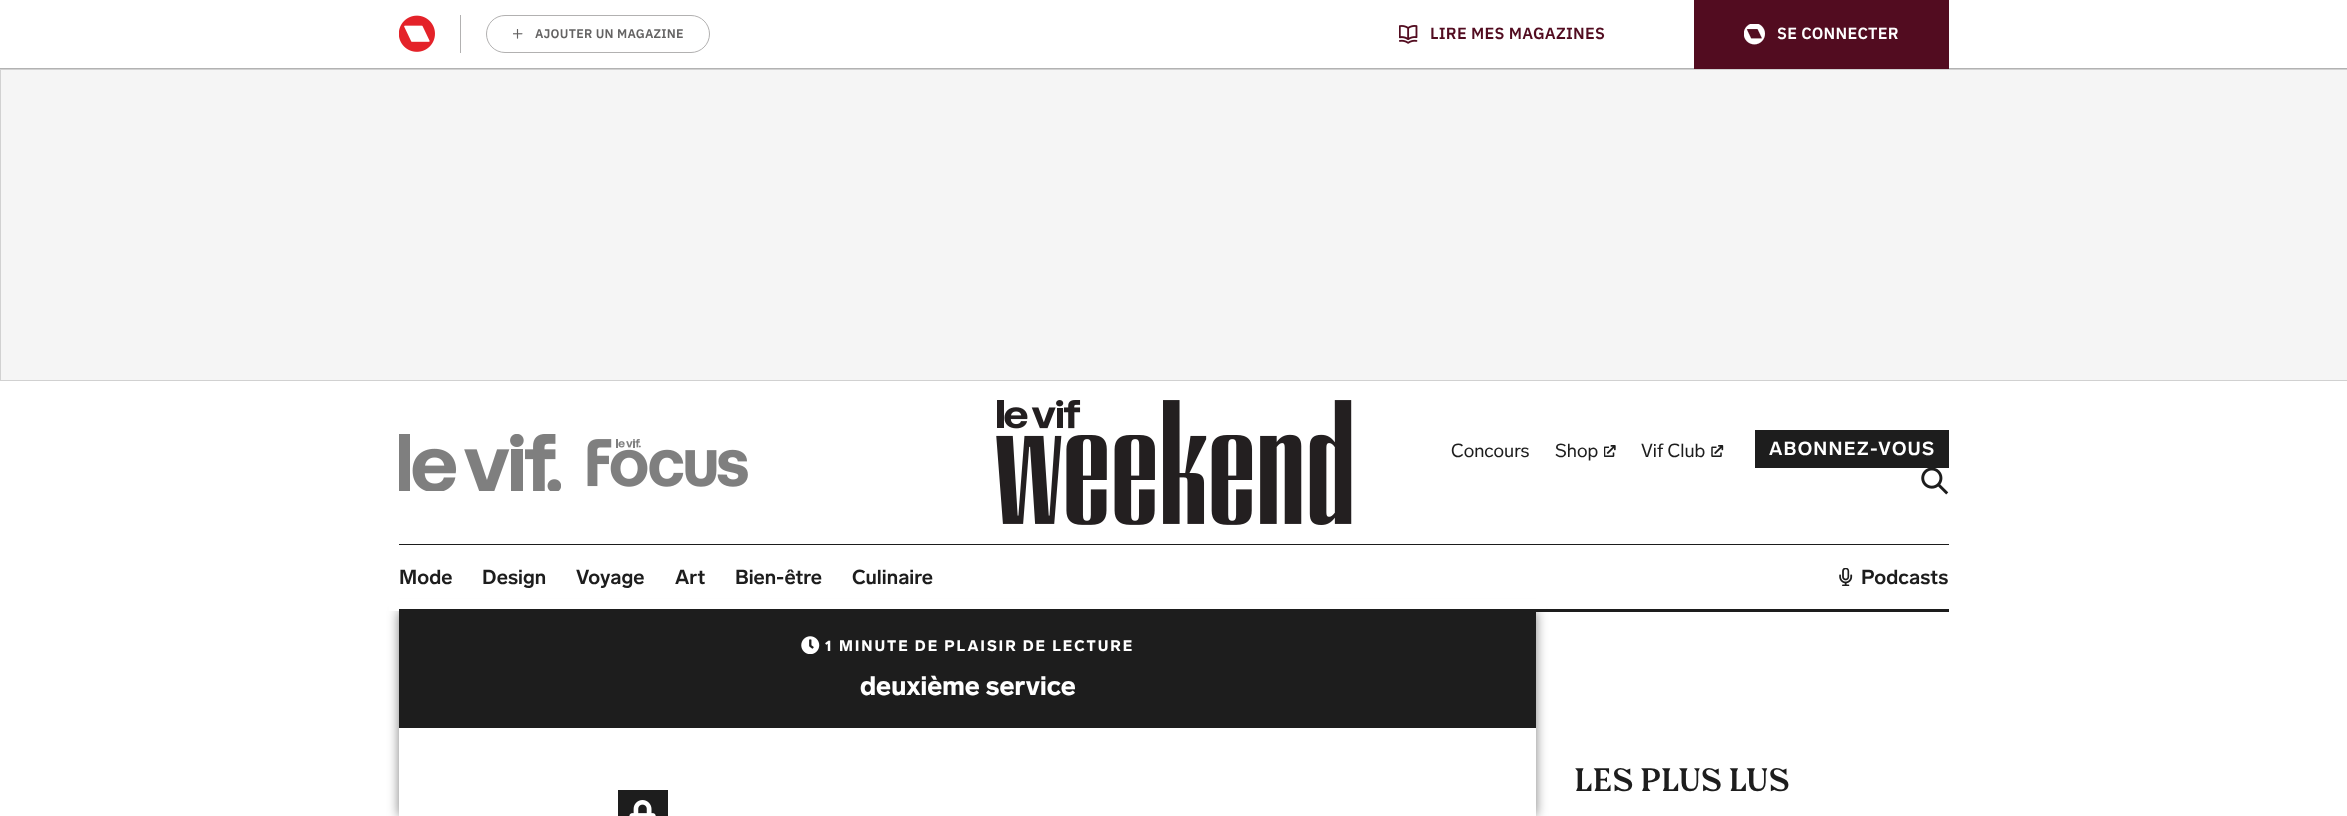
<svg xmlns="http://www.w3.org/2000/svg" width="2347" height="816">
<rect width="100%" height="100%" fill="#fff"/>
<rect y="68" width="2347" height="1" fill="#b2b2b2"/>
<rect x="460" y="15" width="1" height="38" fill="#b2b1b1"/>
<image x="399" y="15" width="36" height="37" href="media/1.png"/>
<rect x="486.5" y="15.5" width="223" height="37" rx="18.5" fill="none" stroke="#b2b1b1"/>
<image x="513" y="29" width="10" height="10" href="media/2.png"/>
<text x="535" y="38" style="font-family:IBM Plex Sans;font-size:12.5px;font-weight:600;letter-spacing:0.25px;fill:#646363">AJOUTER UN MAGAZINE</text>
<image x="1399" y="25" width="19" height="19" href="media/3.png"/>
<text x="1430" y="39" style="font-family:IBM Plex Sans;font-size:16.25px;font-weight:600;letter-spacing:0.25px;fill:#520c20">LIRE MES MAGAZINES</text>
<rect x="1694" width="255" height="69" fill="#520c20"/>
<image x="1744" y="24" width="21" height="21" href="media/4.png"/>
<text x="1777" y="39" style="font-family:IBM Plex Sans;font-size:16.25px;font-weight:600;letter-spacing:0.25px;fill:#fff">SE CONNECTER</text>
<rect x="399" y="611" width="1137" height="205" fill="#00000080" filter="blur(6px)"/>
<rect x="389" y="599" width="1157" height="12" fill="#fff"/>
<rect x="0.5" y="69.5" width="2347" height="311" fill="#f5f5f5" stroke="#d1d1d1"/>
<image x="399" y="434" width="162" height="57" href="media/5.png"/>
<image x="587" y="439" width="161" height="48" href="media/6.png"/>
<image x="996" y="400" width="356" height="125" href="media/7.png"/>
<text x="1451" y="457" style="font-family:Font;font-size:18.75px;fill:#1d1d1d">Concours</text>
<text x="1555" y="457" style="font-family:Font;font-size:18.75px;fill:#1d1d1d">Shop</text>
<image x="1604" y="445" width="12" height="12" href="media/8.png"/>
<text x="1641" y="457" style="font-family:Font;font-size:18.75px;fill:#1d1d1d">Vif Club</text>
<image x="1711" y="445" width="13" height="12" href="media/9.png"/>
<rect x="1755" y="430" width="194" height="38" fill="#1d1d1d"/>
<text x="1769" y="455" style="font-family:Font;font-size:18.75px;font-weight:bold;letter-spacing:1.25px;fill:#fff">ABONNEZ-VOUS</text>
<image x="1921" y="468" width="28" height="27" href="media/10.png"/>
<rect x="399" y="544" width="1550" height="1" fill="#1d1d1d"/>
<rect x="399" y="609" width="1550" height="3" fill="#1d1d1d"/>
<text x="399" y="584" style="font-family:Font;font-size:20px;font-weight:bold;fill:#1d1d1d">Mode</text>
<text x="482" y="584" style="font-family:Font;font-size:20px;font-weight:bold;fill:#1d1d1d">Design</text>
<text x="576" y="584" style="font-family:Font;font-size:20px;font-weight:bold;fill:#1d1d1d">Voyage</text>
<text x="675" y="584" style="font-family:Font;font-size:20px;font-weight:bold;fill:#1d1d1d">Art</text>
<text x="735" y="584" style="font-family:Font;font-size:20px;font-weight:bold;fill:#1d1d1d">Bien-être</text>
<text x="852" y="584" style="font-family:Font;font-size:20px;font-weight:bold;fill:#1d1d1d">Culinaire</text>
<image x="1839" y="568" width="14" height="18" href="media/11.png"/>
<text x="1861" y="584" style="font-family:Font;font-size:20px;font-weight:bold;fill:#1d1d1d">Podcasts</text>
<rect x="399" y="728" width="1137" height="88" fill="#fff"/>
<rect x="399" y="612" width="1137" height="116" fill="#1d1d1d"/>
<image x="801" y="636" width="19" height="18" href="media/12.png"/>
<text x="825" y="651" style="font-family:Font;font-size:15px;font-weight:900;letter-spacing:1.9px;fill:#fff">1 MINUTE DE PLAISIR DE LECTURE</text>
<text x="860" y="695" style="font-family:Font;font-size:26.25px;font-weight:900;fill:#fff">deuxième service</text>
<rect x="618" y="790" width="50" height="26" fill="#1d1d1d"/>
<image x="629" y="800" width="27" height="16" href="media/13.png"/>
<text x="1574" y="791" style="font-family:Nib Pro;font-size:31.25px;font-weight:bold;fill:#1d1d1d">LES PLUS LUS</text>
</svg>
